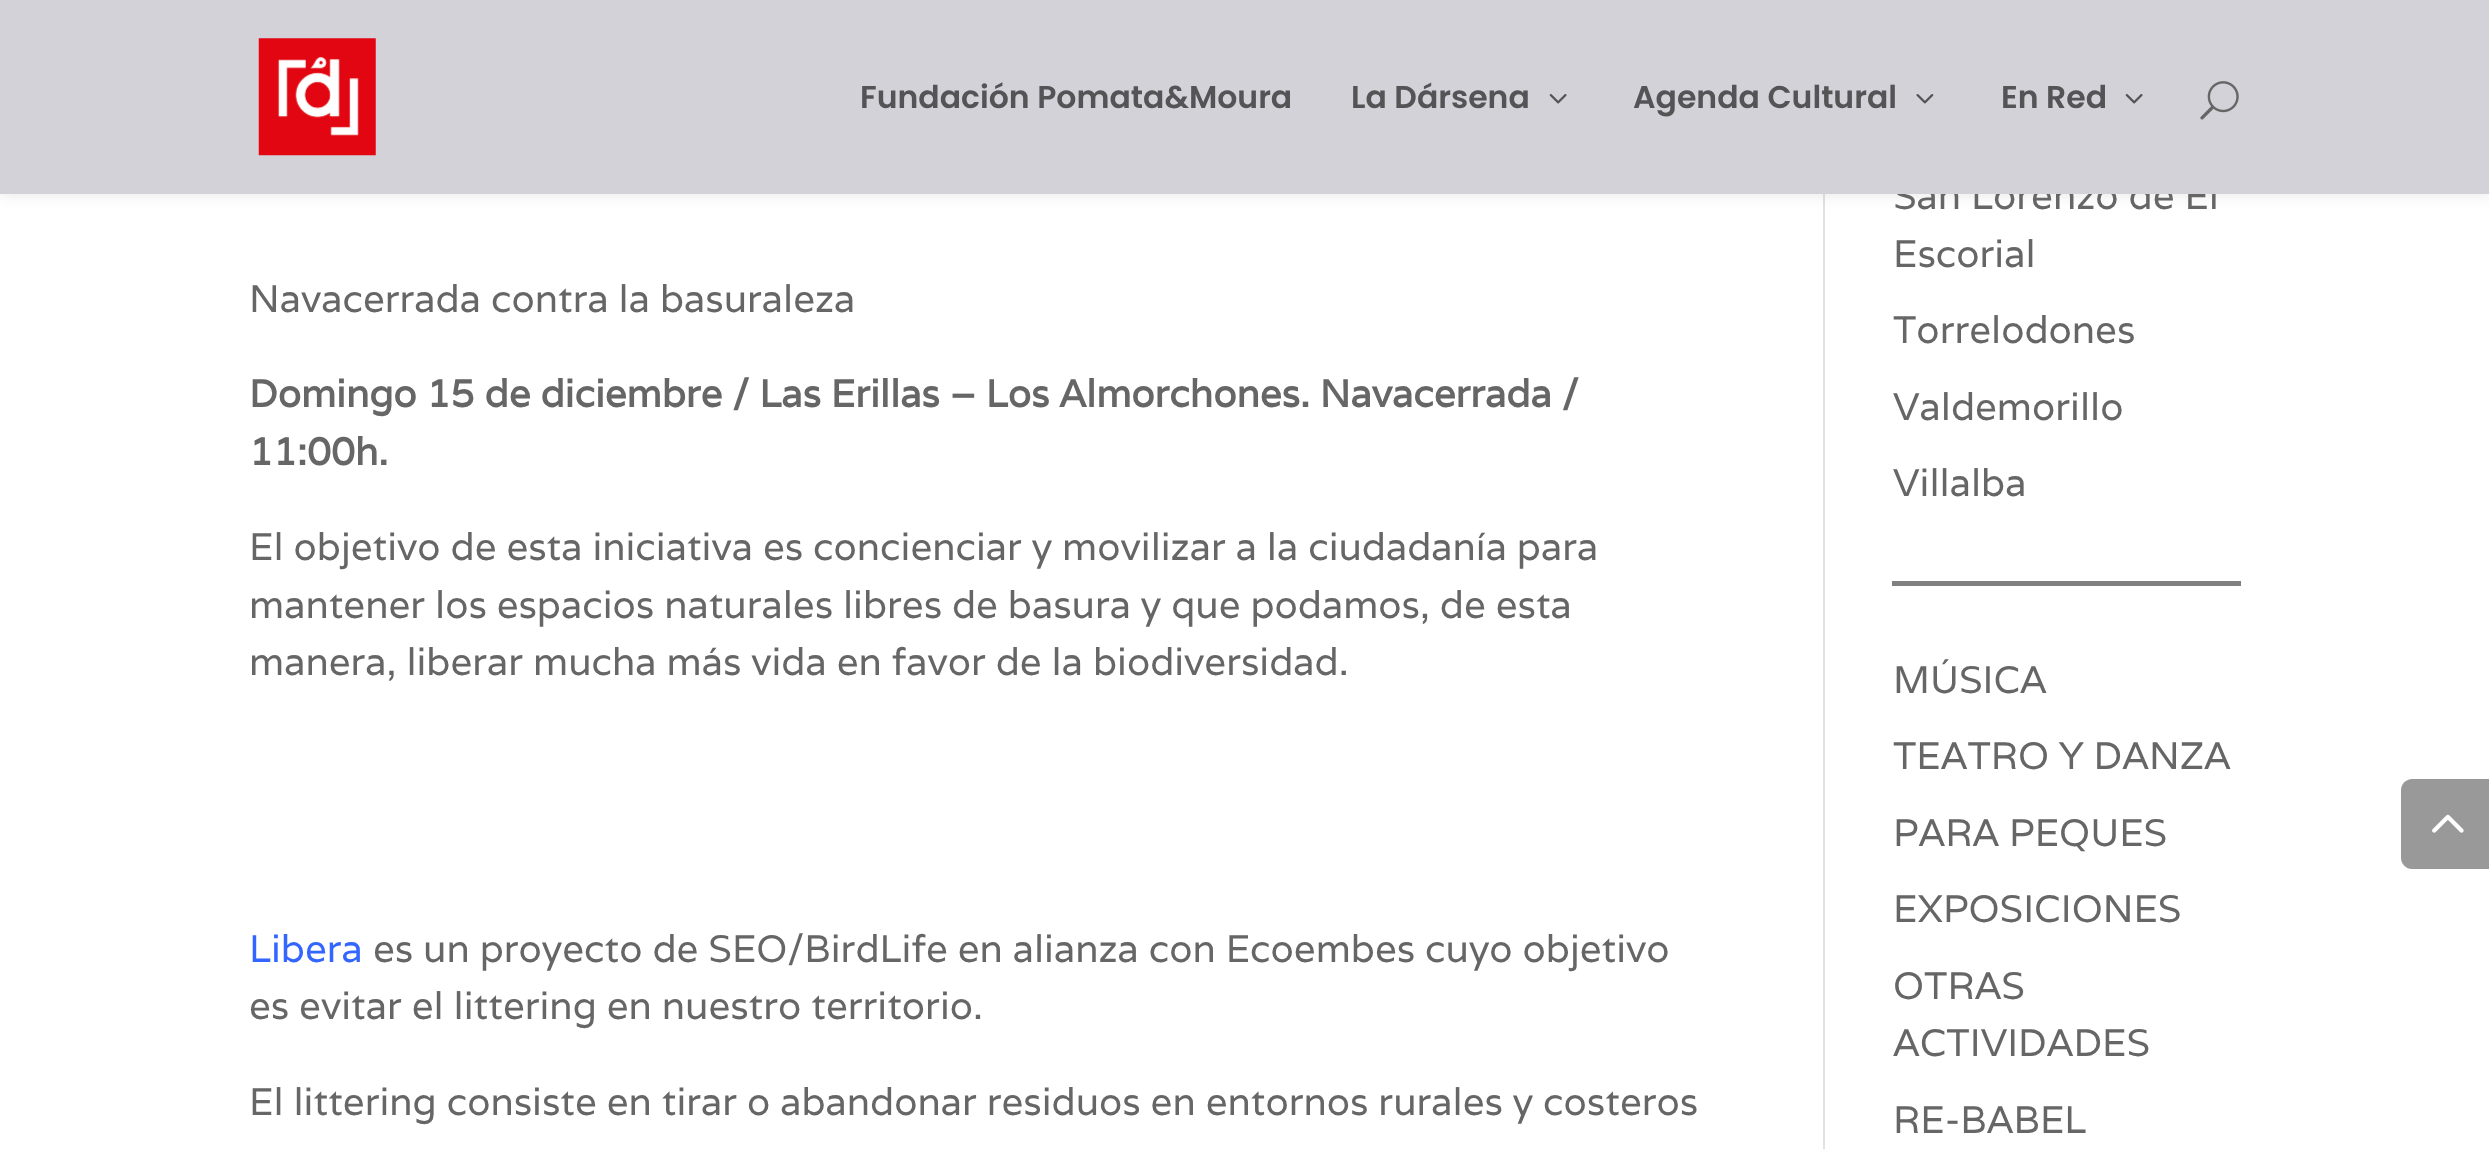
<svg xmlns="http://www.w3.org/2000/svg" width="2489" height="1149">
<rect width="100%" height="100%" fill="#fff"/>
<rect x="1823" y="194" width="2" height="955" fill="#e2e2e2"/>
<rect width="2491" height="194" fill="#0000001a" filter="blur(8px)"/>
<text x="1893" y="209" style="font-family:Varela;font-size:38.25px;fill:#666">San Lorenzo de El</text>
<rect width="2489" height="194" fill="#d3d2d8"/>
<image x="258" y="38" width="118" height="118" href="media/1.png"/>
<text x="860" y="108" style="font-family:Poppins;font-size:31.5px;font-weight:600;fill:#545456">Fundación Pomata&amp;Moura</text>
<text x="1351" y="108" style="font-family:Poppins;font-size:31.5px;font-weight:600;fill:#545456">La Dársena</text>
<image x="1549" y="94" width="18" height="10" href="media/2.png"/>
<text x="1633" y="108" style="font-family:Poppins;font-size:31.5px;font-weight:600;fill:#545456">Agenda Cultural</text>
<image x="1916" y="94" width="18" height="10" href="media/3.png"/>
<text x="2001" y="108" style="font-family:Poppins;font-size:31.5px;font-weight:600;fill:#545456">En Red</text>
<image x="2125" y="94" width="18" height="10" href="media/2.png"/>
<image x="2200" y="81" width="39" height="39" href="media/4.png"/>
<text x="249" y="312" style="font-family:Varela;font-size:38.25px;fill:#666">Navacerrada contra la basuraleza</text>
<text x="249" y="407" style="font-family:Varela;font-size:38.25px;font-weight:bold;fill:#666">Domingo 15 de diciembre / Las Erillas – Los Almorchones. Navacerrada /</text>
<text x="249" y="465" style="font-family:Varela;font-size:38.25px;font-weight:bold;fill:#666">11:00h.</text>
<text x="249" y="560" style="font-family:Varela;font-size:38.25px;fill:#666">El objetivo de esta iniciativa es concienciar y movilizar a la ciudadanía para</text>
<text x="249" y="618" style="font-family:Varela;font-size:38.25px;fill:#666">mantener los espacios naturales libres de basura y que podamos, de esta</text>
<text x="249" y="675" style="font-family:Varela;font-size:38.25px;fill:#666">manera, liberar mucha más vida en favor de la biodiversidad.</text>
<text x="249" y="962" style="font-family:Varela;font-size:38.25px;fill:#36f">Libera</text>
<text x="373" y="962" style="font-family:Varela;font-size:38.25px;fill:#666">es un proyecto de SEO/BirdLife en alianza con Ecoembes cuyo objetivo</text>
<text x="249" y="1019" style="font-family:Varela;font-size:38.25px;fill:#666">es evitar el littering en nuestro territorio.</text>
<text x="249" y="1115" style="font-family:Varela;font-size:38.25px;fill:#666">El littering consiste en tirar o abandonar residuos en entornos rurales y costeros</text>
<text x="1893" y="267" style="font-family:Varela;font-size:38.25px;fill:#666">Escorial</text>
<text x="1893" y="343" style="font-family:Varela;font-size:38.25px;fill:#666">Torrelodones</text>
<text x="1893" y="420" style="font-family:Varela;font-size:38.25px;fill:#666">Valdemorillo</text>
<text x="1893" y="496" style="font-family:Varela;font-size:38.25px;fill:#666">Villalba</text>
<rect x="1892" y="581" width="349" height="5" fill="#808080"/>
<text x="1893" y="693" style="font-family:Varela;font-size:38.25px;fill:#666">MÚSICA</text>
<text x="1893" y="769" style="font-family:Varela;font-size:38.25px;fill:#666">TEATRO Y DANZA</text>
<text x="1893" y="846" style="font-family:Varela;font-size:38.25px;fill:#666">PARA PEQUES</text>
<text x="1893" y="922" style="font-family:Varela;font-size:38.25px;fill:#666">EXPOSICIONES</text>
<text x="1893" y="999" style="font-family:Varela;font-size:38.25px;fill:#666">OTRAS</text>
<text x="1893" y="1056" style="font-family:Varela;font-size:38.25px;fill:#666">ACTIVIDADES</text>
<text x="1893" y="1133" style="font-family:Varela;font-size:38.25px;fill:#666">RE-BABEL</text>
<path d="M2412 779h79v90h-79c-6 0-11-5-11-11v-68c0-6 5-11 11-11z" fill="#999"/>
<image x="2432" y="814" width="32" height="19" href="media/5.png"/>
</svg>
